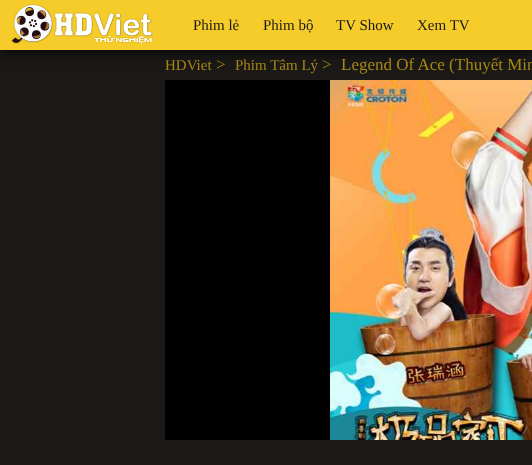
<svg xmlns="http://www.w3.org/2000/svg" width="532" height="465">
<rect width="100%" height="100%" fill="#1a1917"/>
<rect width="532" height="50" fill="#000" filter="blur(7.5px)"/>
<rect width="532" height="50" fill="#f5cc2a"/>
<image x="11" y="4" width="142" height="40" href="media/1.png"/>
<text x="193" y="30" style="font-family:Liberation Serif;font-size:15px;fill:#1a1918">Phim lẻ</text>
<text x="263" y="30" style="font-family:Liberation Serif;font-size:15px;fill:#1a1918">Phim bộ</text>
<text x="336" y="30" style="font-family:Liberation Serif;font-size:15px;fill:#1a1918">TV Show</text>
<text x="417" y="30" style="font-family:Liberation Serif;font-size:15px;fill:#1a1918">Xem TV</text>
<text x="165" y="70" style="font-family:Liberation Serif;font-size:15px;fill:#a78613">HDViet</text>
<text x="216" y="70" style="font-family:Liberation Serif;font-size:17px;fill:#a78613">&gt;</text>
<text x="235" y="70" style="font-family:Liberation Serif;font-size:15px;fill:#a78613">Phim Tâm Lý</text>
<text x="322" y="70" style="font-family:Liberation Serif;font-size:17px;fill:#a78613">&gt;</text>
<text x="341" y="70" style="font-family:Liberation Serif;font-size:17px;fill:#a78613">Legend Of Ace (Thuyết Min</text>
<rect x="165" y="80" width="165" height="360" fill="#000"/>
<image x="330" y="80" width="202" height="360" href="media/2.png"/>
</svg>
